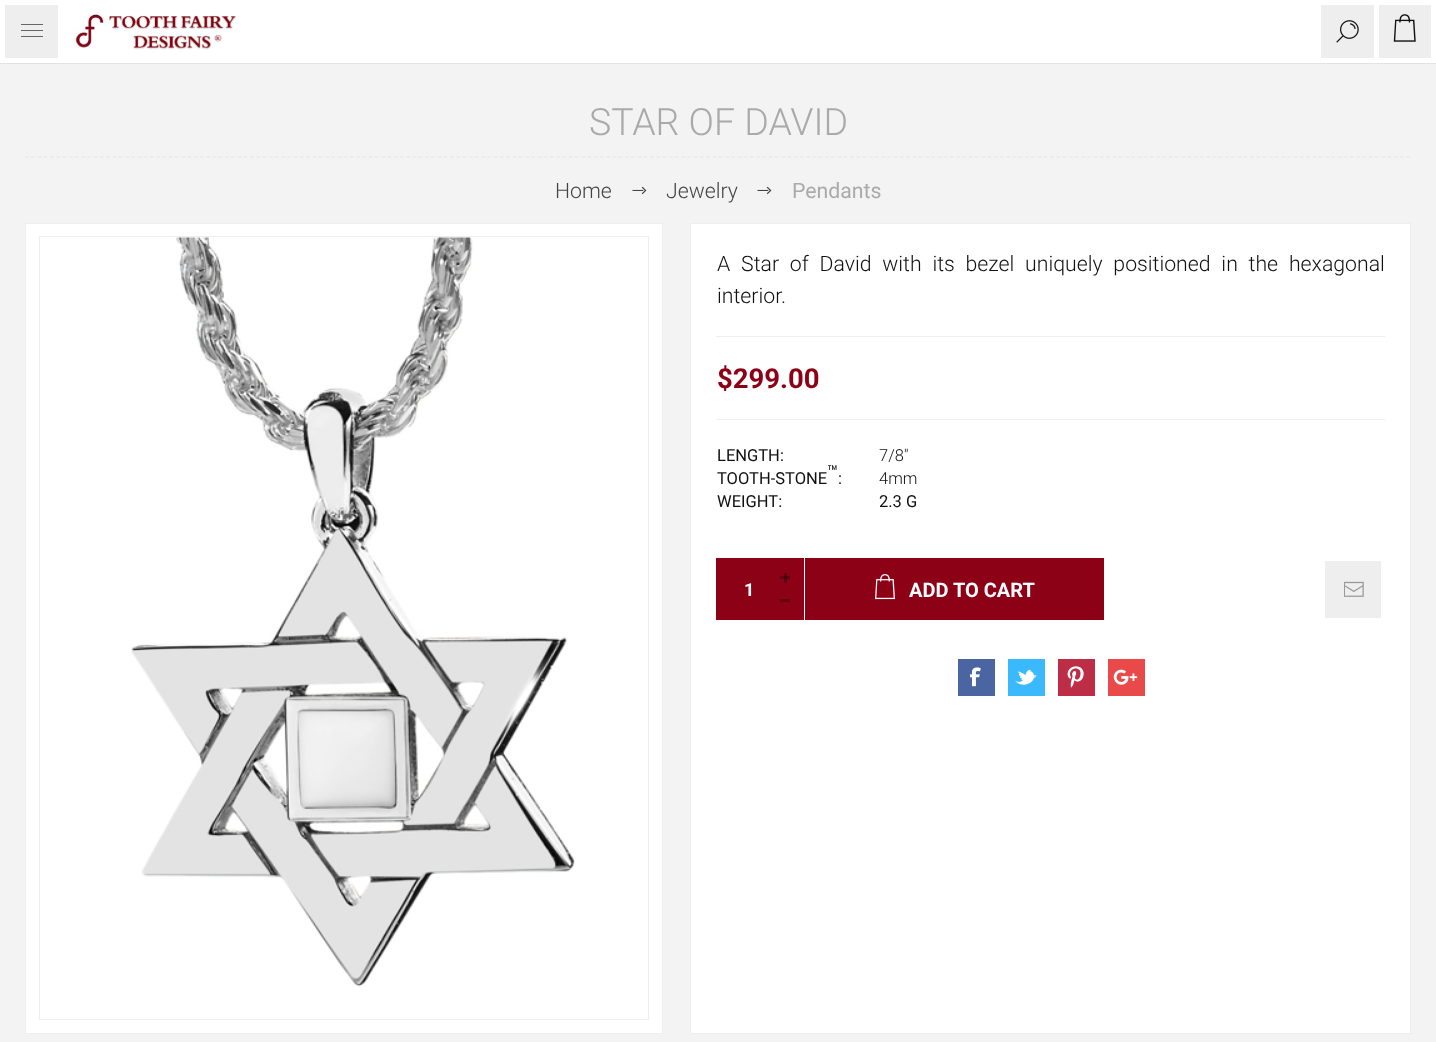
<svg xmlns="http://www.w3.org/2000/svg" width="1436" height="1042">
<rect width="100%" height="100%" fill="#f3f3f3"/>
<rect y="63" width="1436" height="1" fill="#e3e3e3"/>
<rect x="63" width="1311" height="63" fill="#fff"/>
<image x="75" y="14" width="161" height="36" href="media/1.png"/>
<rect x="1321" y="5" width="53" height="53" fill="#eee"/>
<image x="1336" y="20" width="23" height="23" href="media/2.png"/>
<rect x="2.5" y="2.5" width="58" height="58" fill="#eee" stroke="#fff" stroke-width="5"/>
<rect x="21" y="24" width="22" height="1" fill="#666"/>
<rect x="21" y="30" width="22" height="1" fill="#666"/>
<rect x="21" y="36" width="22" height="1" fill="#666"/>
<rect x="1376.5" y="2.5" width="57" height="58" fill="#eee" stroke="#fff" stroke-width="5"/>
<image x="1393" y="14" width="23" height="28" href="media/3.png"/>
<path d="M25 157h1386" fill="none" stroke="#e6e6e6" stroke-width="1.2" stroke-dasharray="3.75 2.5"/>
<text x="589" y="135" style="font-family:Roboto;font-size:37.5px;font-weight:300;fill:#aaa">STAR OF DAVID</text>
<text x="555" y="198" style="font-family:Roboto;font-size:21.25px;font-weight:300;fill:#444">Home</text>
<image x="632" y="186" width="15" height="9" href="media/4.png"/>
<text x="666" y="198" style="font-family:Roboto;font-size:21.25px;font-weight:300;fill:#444">Jewelry</text>
<image x="757" y="186" width="15" height="9" href="media/4.png"/>
<text x="792" y="198" style="font-family:Roboto;font-size:21.25px;fill:#aaa">Pendants</text>
<rect x="25.5" y="223.5" width="637" height="810" fill="#fff" stroke="#eee"/>
<rect x="39.5" y="236.5" width="609" height="783" fill="none" stroke="#eee"/>
<image x="131" y="237" width="444" height="750" href="media/5.png"/>
<rect x="690.5" y="223.5" width="720" height="810" fill="#fff" stroke="#eee"/>
<rect x="716" y="336" width="669" height="1" fill="#eee"/>
<text x="717" y="271" word-spacing="5.6" style="font-family:Roboto;font-size:21.25px;font-weight:300;fill:#111">A Star of David with its bezel uniquely positioned in the hexagonal</text>
<text x="717" y="303" style="font-family:Roboto;font-size:21.25px;font-weight:300;fill:#111">interior.</text>
<rect x="716" y="419" width="669" height="1" fill="#eee"/>
<text x="717" y="388" style="font-family:Roboto;font-size:27.5px;font-weight:bold;fill:#8c0116">$299.00</text>
<text x="717" y="461" style="font-family:Roboto;font-size:16.5px;fill:#111">LENGTH:</text>
<text x="879" y="461" style="font-family:Roboto;font-size:16.5px;font-weight:300;fill:#111">7/8"</text>
<text x="827" y="478" style="font-family:Roboto;font-size:18px;fill:#111">™</text>
<text x="717" y="484" style="font-family:Roboto;font-size:16.5px;fill:#111">TOOTH-STONE</text>
<text x="838" y="484" style="font-family:Roboto;font-size:16.5px;fill:#111">:</text>
<text x="879" y="484" style="font-family:Roboto;font-size:16.5px;font-weight:300;fill:#111">4mm</text>
<text x="717" y="507" style="font-family:Roboto;font-size:16.5px;fill:#111">WEIGHT:</text>
<text x="879" y="507" style="font-family:Roboto;font-size:16.5px;fill:#111">2.3 G</text>
<rect x="716" y="558" width="50" height="62" fill="#8c0116"/>
<text x="744" y="596" style="font-family:Roboto;font-size:18px;font-weight:bold;fill:#fff">1</text>
<rect x="766" y="558" width="38" height="62" fill="#8c0116"/>
<rect x="784" y="573" width="3" height="10" fill="#62010f"/>
<rect x="780" y="576" width="10" height="3" fill="#62010f"/>
<rect x="784" y="576" width="3" height="3" fill="#45010b"/>
<rect x="780" y="599" width="10" height="3" fill="#62010f"/>
<rect x="805" y="558" width="299" height="62" fill="#8c0116"/>
<image x="875" y="574" width="20" height="26" href="media/6.png"/>
<text x="909" y="597" style="font-family:Roboto;font-size:20px;font-weight:bold;fill:#fff">ADD TO CART</text>
<rect x="1325" y="561" width="56" height="57" fill="#eee"/>
<image x="1344" y="581" width="20" height="16" href="media/7.png"/>
<rect x="958" y="659" width="37" height="37" fill="#4a65a2"/>
<image x="970" y="667" width="11" height="20" href="media/8.png"/>
<rect x="1008" y="659" width="37" height="37" fill="#3abafd"/>
<image x="1015" y="669" width="22" height="16" href="media/9.png"/>
<rect x="1058" y="659" width="37" height="37" fill="#bd2d45"/>
<image x="1067" y="666" width="17" height="22" href="media/10.png"/>
<rect x="1108" y="659" width="37" height="37" fill="#e94949"/>
<image x="1113" y="669" width="25" height="16" href="media/11.png"/>
</svg>
